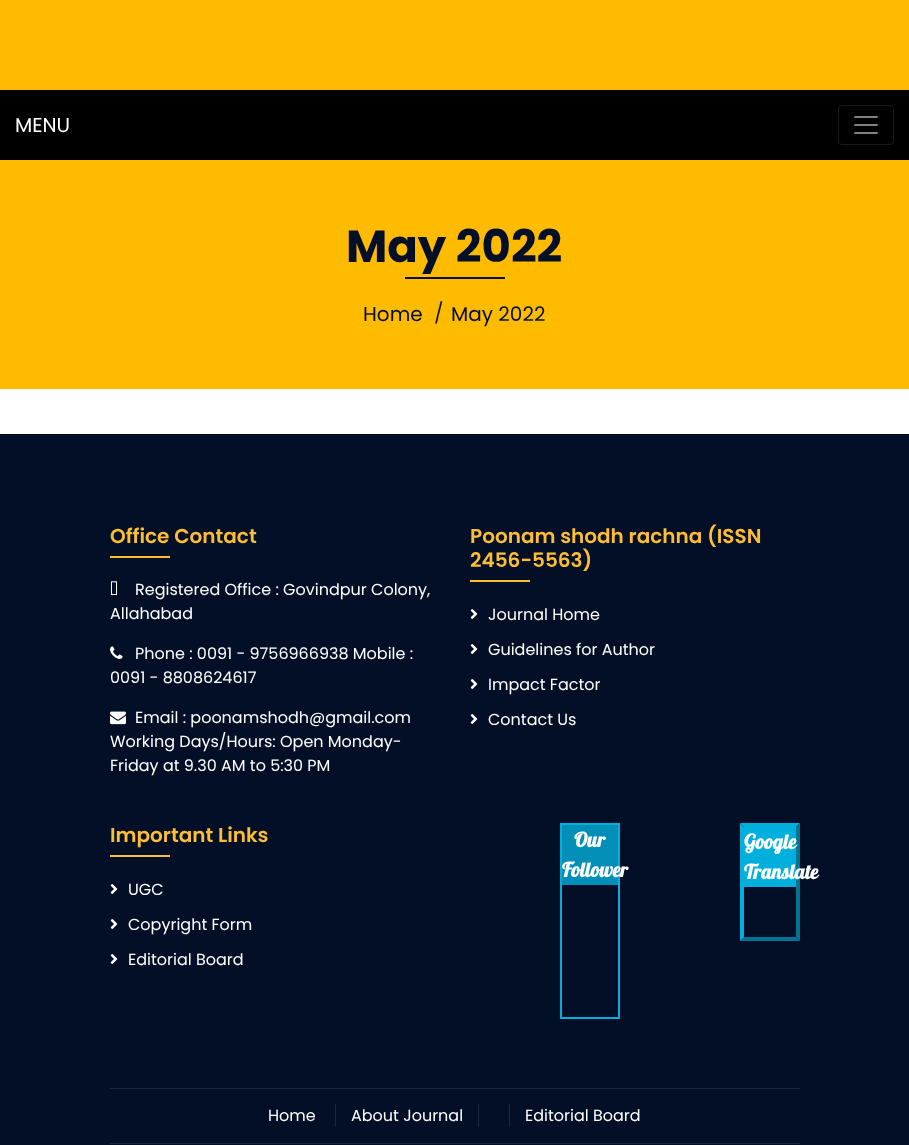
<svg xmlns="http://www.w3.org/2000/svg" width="909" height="1145">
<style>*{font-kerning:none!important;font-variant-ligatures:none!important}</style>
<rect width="100%" height="100%" fill="#fff"/>
<rect width="909" height="90" fill="#fb0"/>
<rect y="90" width="909" height="70" fill="#000"/>
<text x="15" y="132" style="font-family:Poppins;font-size:20px;fill:#fff">MENU</text>
<rect x="838.5" y="105.5" width="55" height="39" rx="3.5" fill="none" stroke="#1a1a1a"/>
<image x="854" y="116" width="24" height="18" href="media/1.png"/>
<rect y="160" width="909" height="229" fill="#fb0"/>
<text x="346" y="262" style="font-family:Poppins;font-size:45px;font-weight:bold;fill:#030f27">May 2022</text>
<rect x="405" y="277" width="100" height="2" fill="#030f27"/>
<text x="363" y="321" style="font-family:Poppins;font-size:20px;fill:#030f27">Home</text>
<text x="434" y="320" style="font-family:Poppins;font-size:20px;fill:#121518">/</text>
<text x="451" y="321" style="font-family:Poppins;font-size:20px;fill:#030f27">May 2022</text>
<rect y="434" width="909" height="711" fill="#030f27"/>
<text x="110" y="543" style="font-family:Poppins;font-size:20px;font-weight:600;fill:#fdbe33">Office Contact</text>
<rect x="110" y="556" width="60" height="2" fill="#fdbe33"/>
<image x="111" y="581" width="6" height="14" href="media/2.png"/>
<text x="135" y="595" style="font-family:Poppins;font-size:16px;fill:#fff">Registered Office : Govindpur Colony,</text>
<text x="110" y="619" style="font-family:Poppins;font-size:16px;fill:#fff">Allahabad</text>
<image x="110" y="646" width="13" height="13" href="media/3.png"/>
<text x="135" y="659" style="font-family:Poppins;font-size:16px;fill:#fff">Phone : 0091 - 9756966938 Mobile :</text>
<text x="110" y="683" style="font-family:Poppins;font-size:16px;fill:#fff">0091 - 8808624617</text>
<image x="110" y="711" width="16" height="14" href="media/4.png"/>
<text x="135" y="723" style="font-family:Poppins;font-size:16px;fill:#fff">Email : poonamshodh@gmail.com</text>
<text x="110" y="747" style="font-family:Poppins;font-size:16px;fill:#fff">Working Days/Hours: Open Monday-</text>
<text x="110" y="771" style="font-family:Poppins;font-size:16px;fill:#fff">Friday at 9.30 AM to 5:30 PM</text>
<text x="470" y="543" style="font-family:Poppins;font-size:20px;font-weight:600;fill:#fdbe33">Poonam shodh rachna (ISSN</text>
<text x="470" y="567" style="font-family:Poppins;font-size:20px;font-weight:600;fill:#fdbe33">2456-5563)</text>
<rect x="470" y="580" width="60" height="2" fill="#fdbe33"/>
<image x="470" y="609" width="8" height="10" href="media/5.png"/>
<text x="488" y="620" style="font-family:Poppins;font-size:16px;fill:#fff">Journal Home</text>
<image x="470" y="644" width="8" height="10" href="media/5.png"/>
<text x="488" y="655" style="font-family:Poppins;font-size:16px;fill:#fff">Guidelines for Author</text>
<image x="470" y="679" width="8" height="10" href="media/5.png"/>
<text x="488" y="690" style="font-family:Poppins;font-size:16px;fill:#fff">Impact Factor</text>
<image x="470" y="714" width="8" height="10" href="media/5.png"/>
<text x="488" y="725" style="font-family:Poppins;font-size:16px;fill:#fff">Contact Us</text>
<text x="110" y="842" style="font-family:Poppins;font-size:20px;font-weight:600;fill:#fdbe33">Important Links</text>
<rect x="110" y="855" width="60" height="2" fill="#fdbe33"/>
<image x="110" y="884" width="8" height="10" href="media/5.png"/>
<text x="128" y="895" style="font-family:Poppins;font-size:16px;fill:#fff">UGC</text>
<image x="110" y="919" width="8" height="10" href="media/5.png"/>
<text x="128" y="930" style="font-family:Poppins;font-size:16px;fill:#fff">Copyright Form</text>
<image x="110" y="954" width="8" height="10" href="media/5.png"/>
<text x="128" y="965" style="font-family:Poppins;font-size:16px;fill:#fff">Editorial Board</text>
<rect x="561" y="824" width="58" height="194" fill="none" stroke="#00afdb" stroke-width="2"/>
<rect x="562" y="825" width="56" height="60" fill="#018fb7"/>
<text x="574" y="847" style="font-family:Lobster;font-size:20px;font-weight:bold;fill:#fff">Our</text>
<text x="562" y="877" style="font-family:Lobster;font-size:20px;font-weight:bold;fill:#fff">Follower</text>
<path d="M740 823h60l-4 4h-52z" fill="#00afdb"/>
<path d="M800 823v118l-4-4v-110z" fill="#007592"/>
<path d="M800 941h-60l4-4h52z" fill="#007592"/>
<path d="M740 941v-118l4 4v110z" fill="#00afdb"/>
<rect x="744" y="827" width="52" height="60" fill="#00afdb"/>
<text x="744" y="849" style="font-family:Lobster;font-size:20px;font-weight:bold;fill:#fff">Google</text>
<text x="744" y="879" style="font-family:Lobster;font-size:20px;font-weight:bold;fill:#fff">Translate</text>
<rect x="110" y="1088" width="690" height="1" fill="#1c273d"/>
<rect x="110" y="1143" width="690" height="1" fill="#1c273d"/>
<text x="268" y="1121" style="font-family:Poppins;font-size:16px;fill:#fff">Home</text>
<rect x="335" y="1104" width="1" height="23" fill="#1c273d"/>
<text x="351" y="1121" style="font-family:Poppins;font-size:16px;fill:#fff">About Journal</text>
<rect x="478" y="1104" width="1" height="23" fill="#1c273d"/>
<rect x="509" y="1104" width="1" height="23" fill="#1c273d"/>
<text x="525" y="1121" style="font-family:Poppins;font-size:16px;fill:#fff">Editorial Board</text>
</svg>
